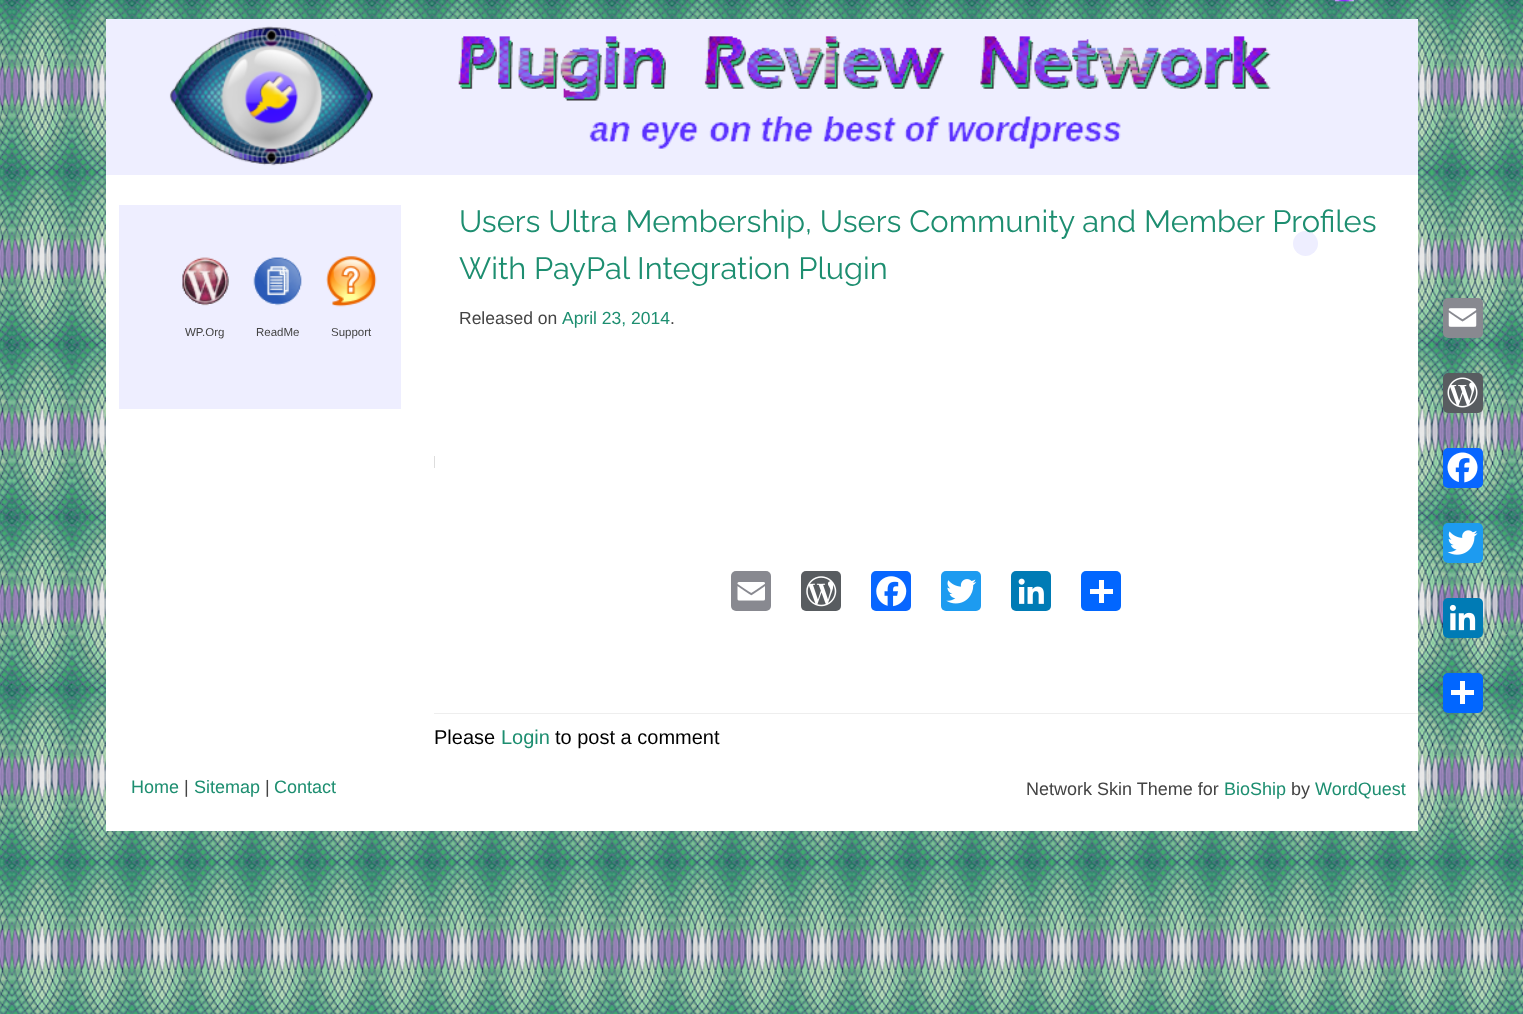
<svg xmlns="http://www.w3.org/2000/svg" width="1523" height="1014">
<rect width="100%" height="100%" fill="#fff"/>
<image x="0" y="0" width="1523" height="1014" href="media/1.png"/>
<rect x="106" y="175" width="1312" height="656" fill="#fff"/>
<rect x="106" y="19" width="1312" height="156" fill="#eef"/>
<image x="458" y="36" width="813" height="113" href="media/2.png"/>
<image x="1331" y="0" width="27" height="2" href="media/3.png"/>
<image x="169" y="26" width="204" height="140" href="media/4.png"/>
<rect x="119" y="205" width="282" height="204" fill="#eef"/>
<image x="182" y="257" width="47" height="49" href="media/5.png"/>
<text x="185" y="336" style="font-family:Liberation Sans;font-size:11.5px;fill:#444">WP.Org</text>
<image x="253" y="257" width="49" height="49" href="media/6.png"/>
<text x="256" y="336" style="font-family:Liberation Sans;font-size:11.5px;fill:#444">ReadMe</text>
<image x="326" y="256" width="51" height="51" href="media/7.png"/>
<text x="331" y="336" style="font-family:Liberation Sans;font-size:11.5px;fill:#444">Support</text>
<circle cx="1305.5" cy="243.5" r="12.5" fill="#eef"/>
<text x="459" y="232" style="font-family:Raleway;font-size:30.8px;font-weight:100;fill:#1d8e70">Users Ultra Membership, Users Community and Member Profiles</text>
<text x="459" y="279" style="font-family:Raleway;font-size:30.8px;font-weight:100;fill:#1d8e70">With PayPal Integration Plugin</text>
<text x="459" y="324" style="font-family:Liberation Sans;font-size:17.5px;fill:#444">Released on</text>
<text x="562" y="324" style="font-family:Liberation Sans;font-size:17.5px;fill:#1d8e70">April 23, 2014</text>
<text x="670" y="324" style="font-family:Liberation Sans;font-size:17.5px;fill:#444">.</text>
<rect x="434" y="456" width="1" height="12" fill="#ddd"/>
<rect x="731" y="571" width="40" height="40" rx="5" fill="#888990"/>
<image x="737" y="582" width="28" height="19" href="media/8.png"/>
<rect x="801" y="571" width="40" height="40" rx="5" fill="#585c60"/>
<image x="806" y="576" width="31" height="31" href="media/9.png"/>
<rect x="871" y="571" width="40" height="40" rx="5" fill="#0866ff"/>
<image x="876" y="576" width="31" height="31" href="media/10.png"/>
<rect x="941" y="571" width="40" height="40" rx="5" fill="#1d9bf0"/>
<image x="946" y="579" width="31" height="25" href="media/11.png"/>
<rect x="1011" y="571" width="40" height="40" rx="5" fill="#007bb5"/>
<image x="1018" y="578" width="26" height="26" href="media/12.png"/>
<rect x="1081" y="571" width="40" height="40" rx="5" fill="#0166ff"/>
<rect x="1099" y="580" width="5" height="23" fill="#fff"/>
<rect x="1090" y="589" width="23" height="5" fill="#fff"/>
<rect x="434" y="713" width="984" height="1" fill="#eee"/>
<text x="434" y="744" style="font-family:Liberation Sans;font-size:20px;fill:#000">Please</text>
<text x="501" y="744" style="font-family:Liberation Sans;font-size:20px;fill:#1d8e70">Login</text>
<text x="555" y="744" style="font-family:Liberation Sans;font-size:20px;fill:#000">to post a comment</text>
<rect x="1443" y="298" width="40" height="40" rx="5" fill="#888990"/>
<image x="1448" y="308" width="29" height="19" href="media/13.png"/>
<rect x="1443" y="373" width="40" height="40" rx="5" fill="#585c60"/>
<image x="1447" y="377" width="31" height="31" href="media/14.png"/>
<rect x="1443" y="448" width="40" height="40" rx="5" fill="#0866ff"/>
<image x="1447" y="452" width="31" height="31" href="media/15.png"/>
<rect x="1443" y="523" width="40" height="40" rx="5" fill="#1d9bf0"/>
<image x="1447" y="530" width="31" height="25" href="media/16.png"/>
<rect x="1443" y="598" width="40" height="40" rx="5" fill="#007bb5"/>
<image x="1449" y="604" width="27" height="27" href="media/17.png"/>
<rect x="1443" y="673" width="40" height="40" rx="5" fill="#0166ff"/>
<rect x="1460" y="681" width="5" height="23" fill="#fff"/>
<rect x="1451" y="690" width="23" height="5" fill="#fff"/>
<text x="131" y="793" style="font-family:Liberation Sans;font-size:18px;fill:#1d8e70">Home</text>
<text x="184" y="793" style="font-family:Liberation Sans;font-size:18px;fill:#444">|</text>
<text x="194" y="793" style="font-family:Liberation Sans;font-size:18px;fill:#1d8e70">Sitemap</text>
<text x="265" y="793" style="font-family:Liberation Sans;font-size:18px;fill:#444">|</text>
<text x="274" y="793" style="font-family:Liberation Sans;font-size:18px;fill:#1d8e70">Contact</text>
<text x="1026" y="795" style="font-family:Liberation Sans;font-size:18px;fill:#444">Network Skin Theme for</text>
<text x="1224" y="795" style="font-family:Liberation Sans;font-size:18px;fill:#1d8e70">BioShip</text>
<text x="1291" y="795" style="font-family:Liberation Sans;font-size:18px;fill:#444">by</text>
<text x="1315" y="795" style="font-family:Liberation Sans;font-size:18px;fill:#1d8e70">WordQuest</text>
</svg>
